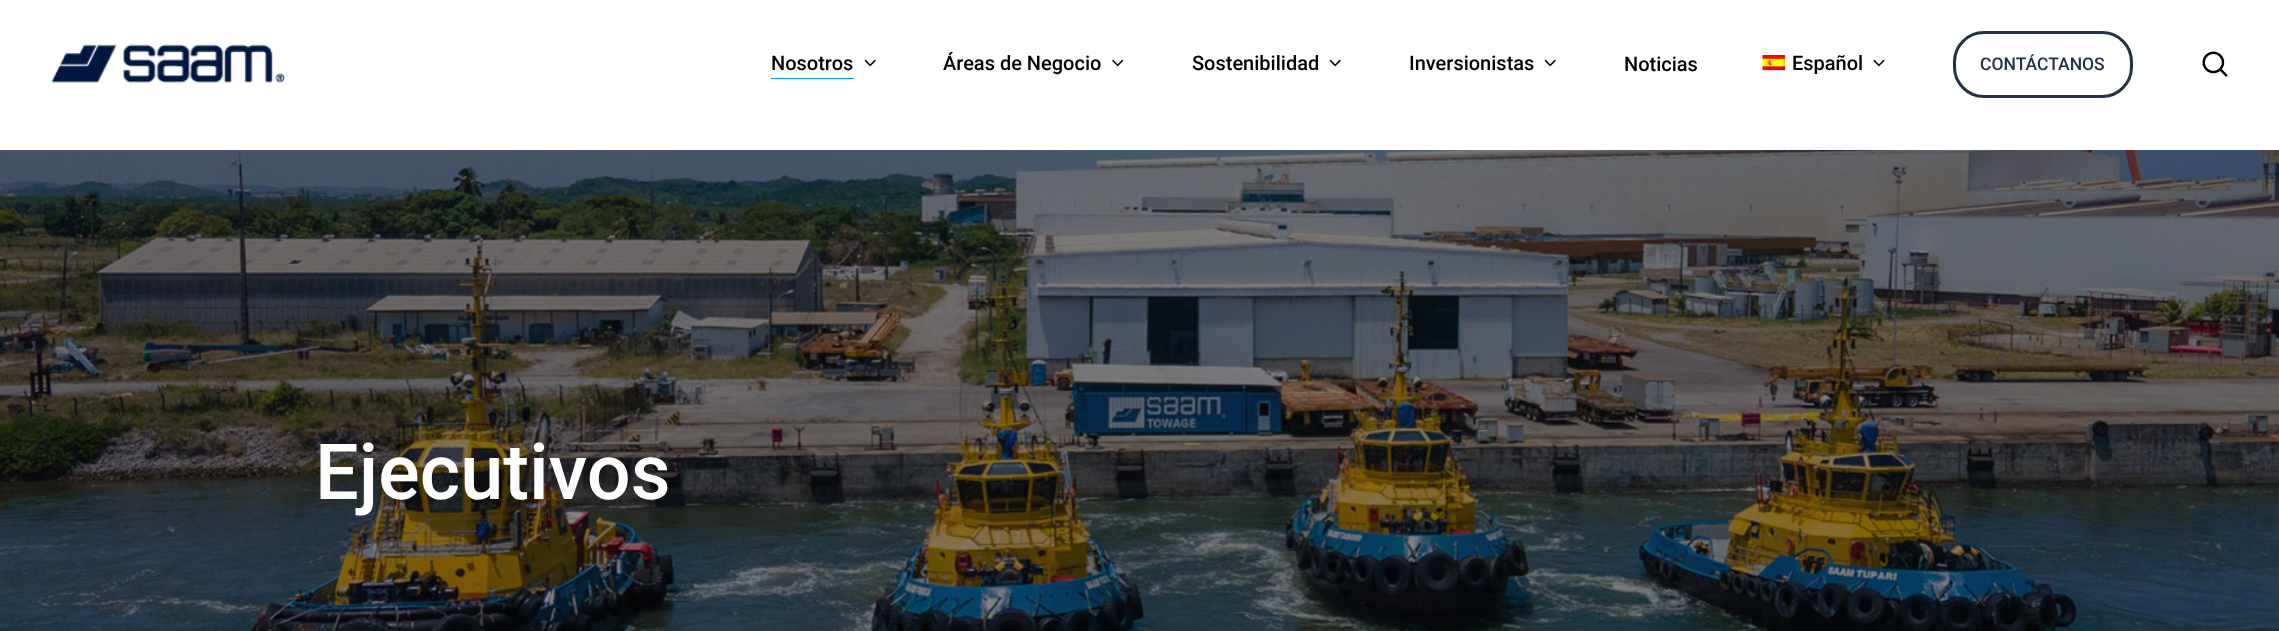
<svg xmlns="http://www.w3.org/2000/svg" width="2279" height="631">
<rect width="100%" height="100%" fill="#fff"/>
<image x="51" y="44" width="235" height="39" href="media/1.png"/>
<text x="771" y="70" style="font-family:Roboto;font-size:20px;font-weight:500;fill:#000">Nosotros</text>
<rect x="771" y="78" width="83" height="1" fill="#008fff"/>
<image x="864" y="59" width="12" height="8" href="media/2.png"/>
<text x="943" y="70" style="font-family:Roboto;font-size:20px;font-weight:500;fill:#000">Áreas de Negocio</text>
<image x="1112" y="59" width="12" height="8" href="media/3.png"/>
<text x="1192" y="70" style="font-family:Roboto;font-size:20px;font-weight:500;fill:#000">Sostenibilidad</text>
<image x="1329" y="59" width="12" height="8" href="media/2.png"/>
<text x="1409" y="70" style="font-family:Roboto;font-size:20px;font-weight:500;fill:#000">Inversionistas</text>
<image x="1544" y="59" width="12" height="8" href="media/2.png"/>
<text x="1624" y="71" style="font-family:Roboto;font-size:20px;font-weight:500;fill:#000">Noticias</text>
<image x="1762" y="55" width="24" height="16" href="media/4.png"/>
<text x="1792" y="70" style="font-family:Roboto;font-size:20px;font-weight:500;fill:#000">Español</text>
<image x="1873" y="59" width="12" height="8" href="media/5.png"/>
<rect x="1954.5" y="32.5" width="177" height="64" rx="29.5" fill="none" stroke="#243144" stroke-width="3"/>
<text x="1980" y="70" style="font-family:Roboto;font-size:17.5px;font-weight:500;fill:#243144">CONTÁCTANOS</text>
<image x="2202" y="51" width="26" height="26" href="media/6.png"/>
<image x="0" y="150" width="2279" height="481" href="media/7.png"/>
<text x="315" y="499" style="font-family:Roboto;font-size:77.5px;font-weight:500;fill:#fff">Ejecutivos</text>
</svg>
